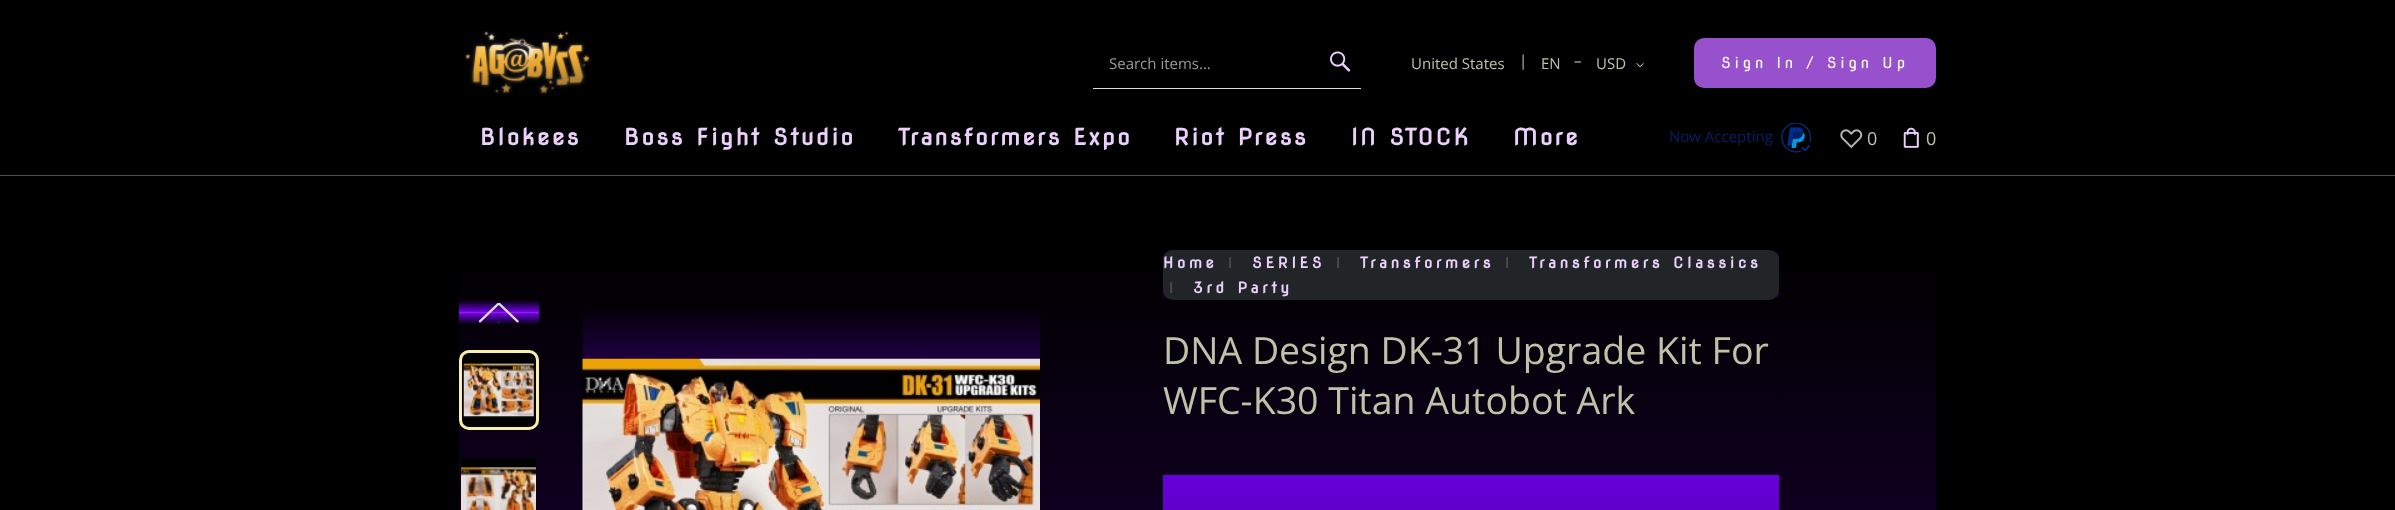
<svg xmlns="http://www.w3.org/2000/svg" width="2395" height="510">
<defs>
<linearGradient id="g1" gradientUnits="userSpaceOnUse" x1="1197" y1="250" x2="1198" y2="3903"><stop offset="0" stop-color="#000"/><stop offset="0.5" stop-color="#6700da"/><stop offset="1" stop-color="#000"/></linearGradient>
<linearGradient id="g2" gradientUnits="userSpaceOnUse" x1="499" y1="300" x2="499" y2="325"><stop offset="0" stop-color="#000"/><stop offset="0.45" stop-color="#6700da"/><stop offset="0.5" stop-color="#a915e8"/><stop offset="0.55" stop-color="#6700da"/><stop offset="1" stop-color="#000"/></linearGradient>
<linearGradient id="g3" gradientUnits="userSpaceOnUse" x1="811" y1="300" x2="811" y2="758"><stop offset="0" stop-color="#000"/><stop offset="0.45" stop-color="#6700da"/><stop offset="0.5" stop-color="#a915e8"/><stop offset="0.55" stop-color="#6700da"/><stop offset="1" stop-color="#000"/></linearGradient>
<linearGradient id="g4" gradientUnits="userSpaceOnUse" x1="1471" y1="250" x2="1471" y2="300"><stop offset="0" stop-color="#000"/><stop offset="0.45" stop-color="#6700da"/><stop offset="0.5" stop-color="#a915e8"/><stop offset="0.55" stop-color="#6700da"/><stop offset="1" stop-color="#000"/></linearGradient>
<linearGradient id="g5" gradientUnits="userSpaceOnUse" x1="1471" y1="475" x2="1471" y2="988"><stop offset="0" stop-color="#6700da"/><stop offset="1" stop-color="#000"/></linearGradient>
</defs>
<rect width="100%" height="100%" fill="#000"/>
<rect y="175" width="2395" height="1" fill="#4b4d4d"/>
<image x="464" y="31" width="127" height="65" href="media/1.png"/>
<rect x="1093" y="88" width="268" height="1" fill="#dcdcdc"/>
<text x="1109" y="69" style="font-family:Open Sans;font-size:15px;fill:#9a9a9a">Search items...</text>
<image x="1330" y="51" width="21" height="21" href="media/2.png"/>
<text x="1411" y="69" style="font-family:Open Sans;font-size:15px;fill:#bec2a9">United States</text>
<text x="1519" y="66" style="font-family:Open Sans;font-size:15px;fill:#bec2a9">|</text>
<text x="1541" y="69" style="font-family:Open Sans;font-size:15px;fill:#bec2a9">EN</text>
<text x="1574" y="66" style="font-family:Open Sans;font-size:15px;fill:#bec2a9">–</text>
<text x="1596" y="69" style="font-family:Open Sans;font-size:15px;fill:#bec2a9">USD</text>
<image x="1636" y="63" width="8" height="5" href="media/3.png"/>
<rect x="1695.5" y="39.5" width="239" height="47" rx="8.5" fill="#9751cd" stroke="#9751cd" stroke-width="3"/>
<text x="1721" y="68" style="font-family:Nova Flat;font-size:15px;letter-spacing:3.75px;fill:#fff">Sign In / Sign Up</text>
<text x="480" y="145" style="font-family:Nova Flat;font-size:22.5px;font-weight:bold;letter-spacing:2.5px;fill:#ebd0fc">Blokees</text>
<text x="624" y="145" style="font-family:Nova Flat;font-size:22.5px;font-weight:bold;letter-spacing:2.5px;fill:#ebd0fc">Boss Fight Studio</text>
<text x="898" y="145" style="font-family:Nova Flat;font-size:22.5px;font-weight:bold;letter-spacing:2.5px;fill:#ebd0fc">Transformers Expo</text>
<text x="1174" y="145" style="font-family:Nova Flat;font-size:22.5px;font-weight:bold;letter-spacing:2.5px;fill:#ebd0fc">Riot Press</text>
<text x="1351" y="145" style="font-family:Nova Flat;font-size:22.5px;font-weight:bold;letter-spacing:2.5px;fill:#ebd0fc">IN STOCK</text>
<text x="1513" y="145" style="font-family:Nova Flat;font-size:22.5px;font-weight:bold;letter-spacing:2.5px;fill:#ebd0fc">More</text>
<text x="1669" y="142" style="font-family:Open Sans;font-size:15px;fill:#0a1f6b">Now Accepting</text>
<image x="1781" y="123" width="30" height="30" href="media/4.png"/>
<image x="1840" y="129" width="23" height="20" href="media/5.png"/>
<text x="1867" y="145" style="font-family:Open Sans;font-size:18px;fill:#bec2a9">0</text>
<image x="1903" y="127" width="16" height="21" href="media/6.png"/>
<text x="1926" y="145" style="font-family:Open Sans;font-size:18px;fill:#bec2a9">0</text>
<rect x="459" y="271" width="1477" height="239" fill="url(#g1)"/>
<rect x="459" y="300" width="80" height="24" fill="url(#g2)"/>
<image x="479" y="303" width="40" height="20" href="media/7.png"/>
<rect x="460.5" y="351.5" width="77" height="77" rx="8.5" fill="none" stroke="#f7f1a7" stroke-width="3"/>
<rect x="464" y="355" width="70" height="70" fill="#000"/>
<image x="463" y="363" width="71" height="55" href="media/8.png"/>
<rect x="461" y="458" width="75" height="11" fill="#000"/>
<image x="461" y="467" width="75" height="43" href="media/9.png"/>
<rect x="583" y="300" width="457" height="59" fill="url(#g3)"/>
<image x="582" y="358" width="458" height="152" href="media/10.png"/>
<rect x="1163" y="250" width="616" height="49" fill="url(#g4)"/>
<rect x="1163" y="250" width="616" height="50" rx="10" fill="#222527"/>
<text x="1163" y="268" style="font-family:Nova Flat;font-size:15px;font-weight:bold;letter-spacing:3.75px;fill:#ebd0fc">Home</text>
<text x="1228" y="268" style="font-family:Liberation Sans;font-size:15px;font-weight:bold;letter-spacing:3.75px;fill:#4b4d4d">ǀ</text>
<text x="1252" y="268" style="font-family:Nova Flat;font-size:15px;font-weight:bold;letter-spacing:3.75px;fill:#ebd0fc">SERIES</text>
<text x="1336" y="268" style="font-family:Liberation Sans;font-size:15px;font-weight:bold;letter-spacing:3.75px;fill:#4b4d4d">ǀ</text>
<text x="1360" y="268" style="font-family:Nova Flat;font-size:15px;font-weight:bold;letter-spacing:3.75px;fill:#ebd0fc">Transformers</text>
<text x="1505" y="268" style="font-family:Liberation Sans;font-size:15px;font-weight:bold;letter-spacing:3.75px;fill:#4b4d4d">ǀ</text>
<text x="1529" y="268" style="font-family:Nova Flat;font-size:15px;font-weight:bold;letter-spacing:3.75px;fill:#ebd0fc">Transformers Classics</text>
<text x="1169" y="293" style="font-family:Liberation Sans;font-size:15px;font-weight:bold;letter-spacing:3.75px;fill:#4b4d4d">ǀ</text>
<text x="1193" y="293" style="font-family:Nova Flat;font-size:15px;font-weight:bold;letter-spacing:3.75px;fill:#ebd0fc">3rd Party</text>
<text x="1163" y="364" style="font-family:Open Sans;font-size:37.5px;fill:#bec2a9">DNA Design DK-31 Upgrade Kit For</text>
<text x="1163" y="414" style="font-family:Open Sans;font-size:37.5px;fill:#bec2a9">WFC-K30 Titan Autobot Ark</text>
<rect x="1163" y="475" width="616" height="35" fill="url(#g5)"/>
</svg>
